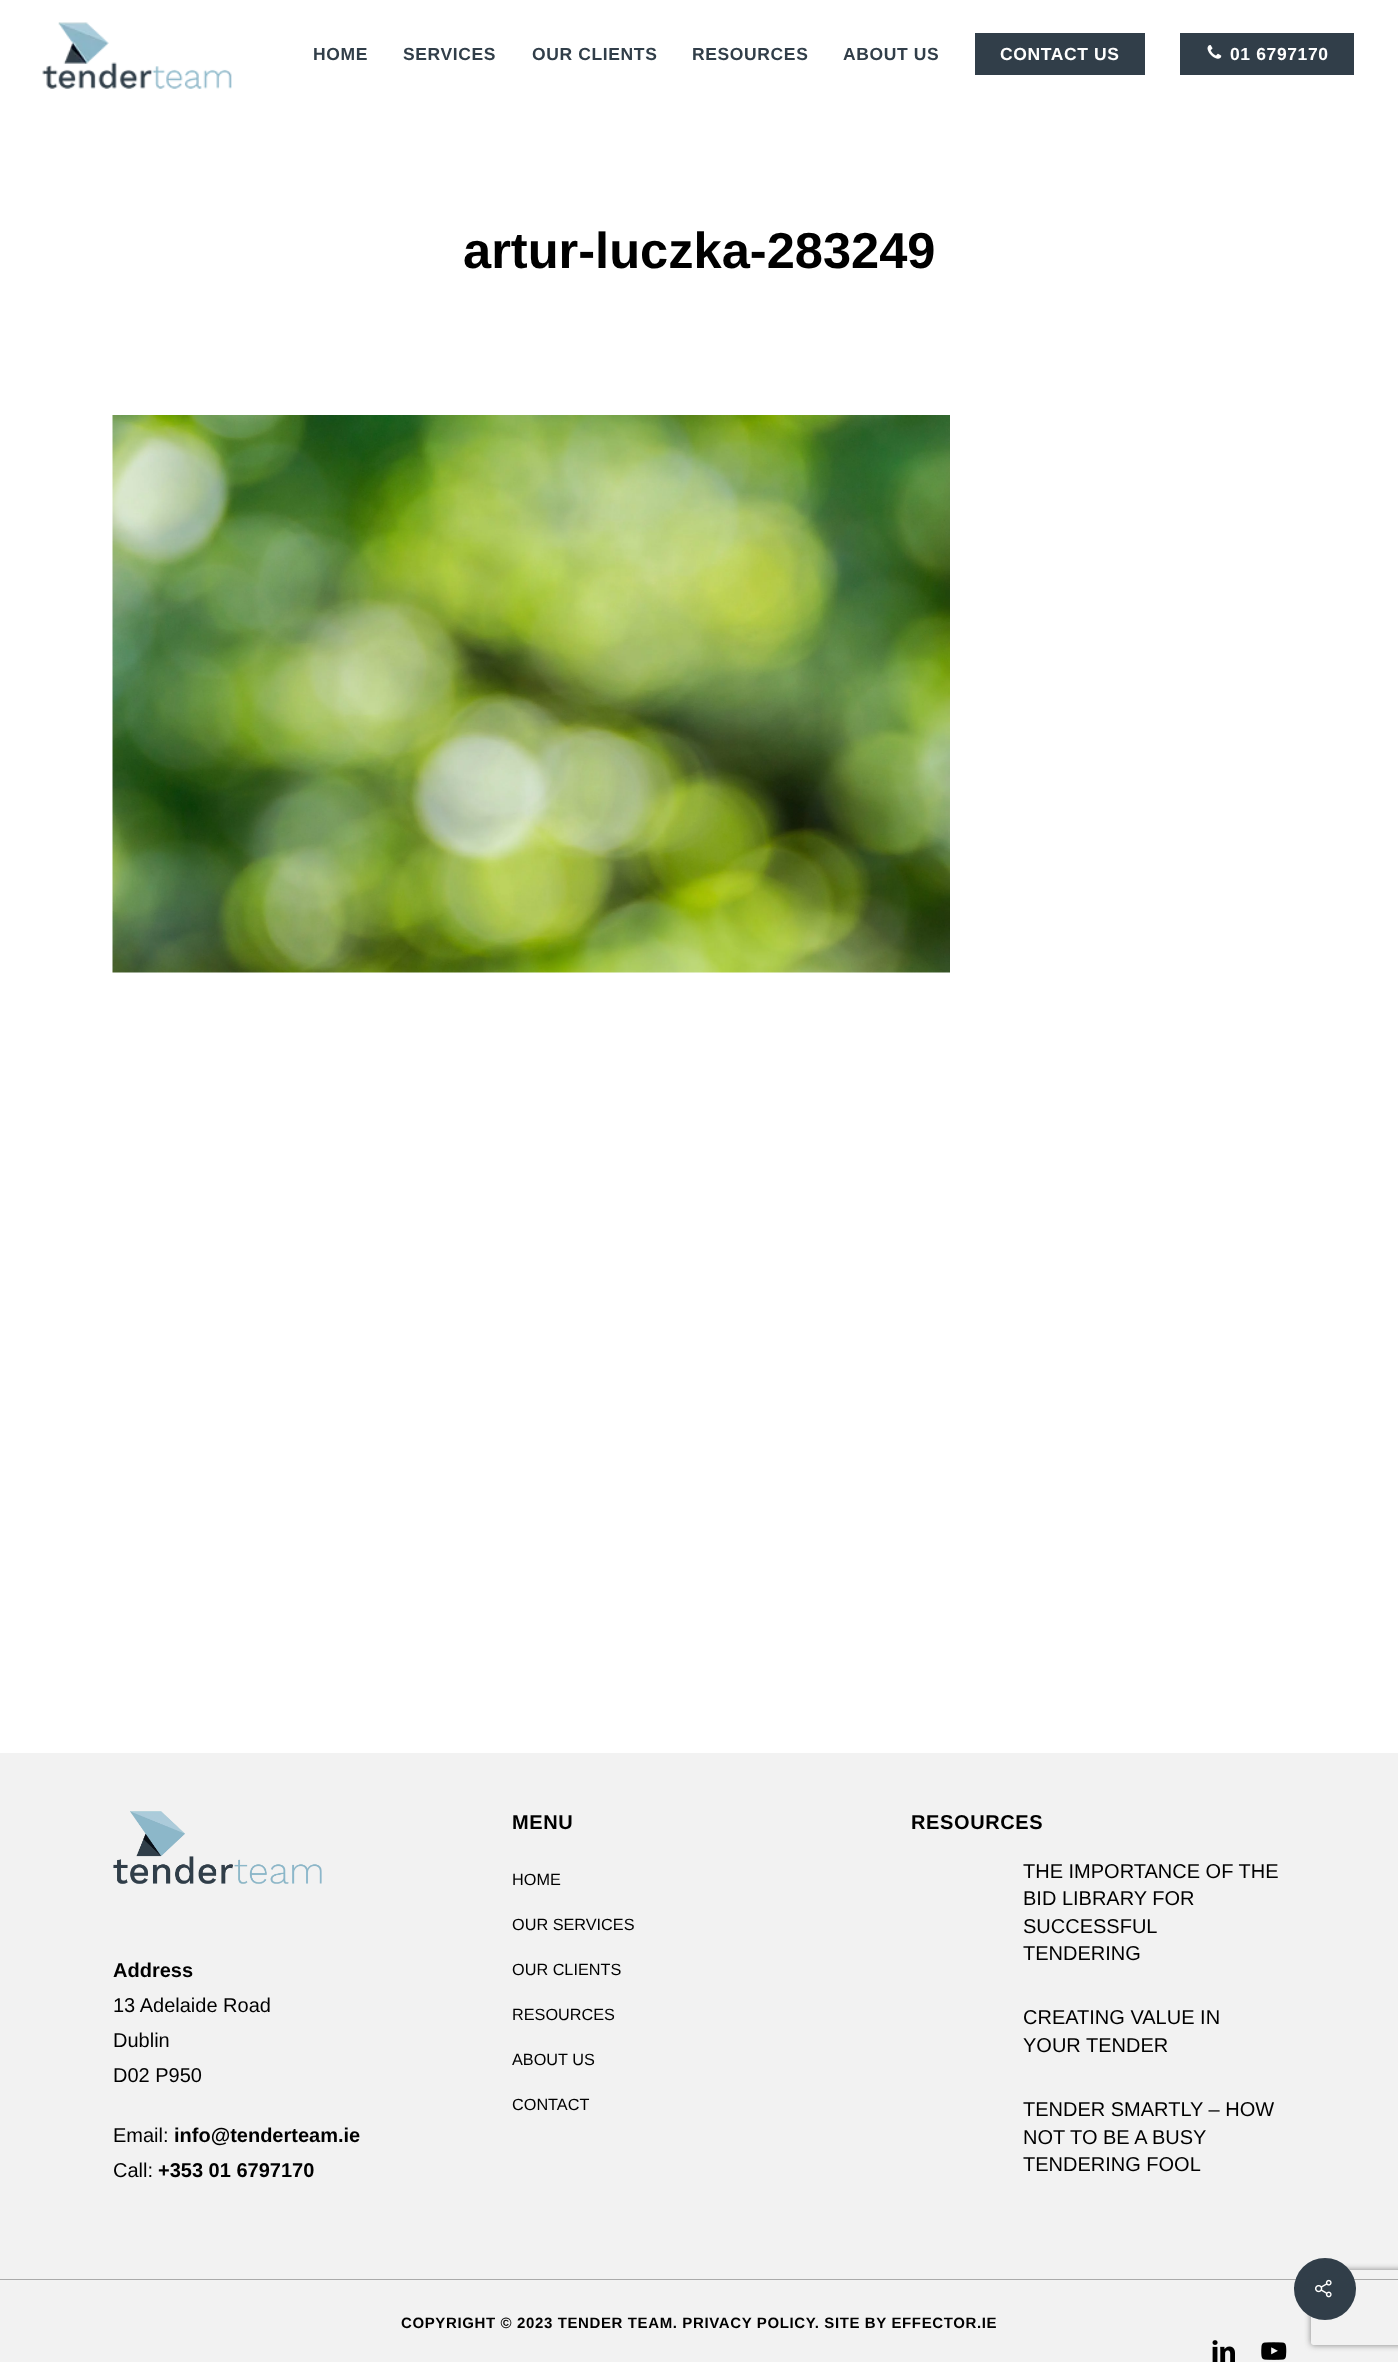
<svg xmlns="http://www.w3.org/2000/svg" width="1398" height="2362">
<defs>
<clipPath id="clip1"><path d="M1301 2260h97v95h-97zm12.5 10h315c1.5 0 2.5 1 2.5 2.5v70c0 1.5-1 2.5-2.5 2.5h-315c-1.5 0-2.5-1-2.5-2.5v-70c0-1.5 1-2.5 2.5-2.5z" clip-rule="evenodd"/></clipPath>
</defs>
<rect width="100%" height="100%" fill="#fff"/>
<image x="42" y="22" width="190" height="67" href="media/1.png"/>
<text x="313" y="60" style="font-family:Liberation Sans;font-size:17.5px;font-weight:bold;letter-spacing:0.62px;fill:#313e49">HOME</text>
<text x="403" y="60" style="font-family:Liberation Sans;font-size:17.5px;font-weight:bold;letter-spacing:0.62px;fill:#313e49">SERVICES</text>
<text x="532" y="60" style="font-family:Liberation Sans;font-size:17.5px;font-weight:bold;letter-spacing:0.62px;fill:#313e49">OUR CLIENTS</text>
<text x="692" y="60" style="font-family:Liberation Sans;font-size:17.5px;font-weight:bold;letter-spacing:0.62px;fill:#313e49">RESOURCES</text>
<text x="843" y="60" style="font-family:Liberation Sans;font-size:17.5px;font-weight:bold;letter-spacing:0.62px;fill:#313e49">ABOUT US</text>
<rect x="975" y="33" width="170" height="42" fill="#313e49"/>
<text x="1000" y="60" style="font-family:Liberation Sans;font-size:17.5px;font-weight:bold;letter-spacing:0.62px;fill:#fff">CONTACT US</text>
<rect x="1180" y="33" width="174" height="42" fill="#313e49"/>
<image x="1207" y="45" width="15" height="14" href="media/2.png"/>
<text x="1230" y="60" style="font-family:Liberation Sans;font-size:17.5px;font-weight:bold;letter-spacing:0.62px;fill:#fff">01 6797170</text>
<text x="463" y="268" style="font-family:Liberation Sans;font-size:50.6px;font-weight:bold;fill:#000">artur-luczka-283249</text>
<image x="112" y="415" width="838" height="558" href="media/3.png"/>
<rect y="1753" width="1398" height="609" fill="#f2f2f2"/>
<image x="113" y="1811" width="209" height="73" href="media/4.png"/>
<text x="113" y="1977" style="font-family:Liberation Sans;font-size:20px;font-weight:bold;fill:#000">Address</text>
<text x="113" y="2012" style="font-family:Liberation Sans;font-size:20px;fill:#000">13 Adelaide Road</text>
<text x="113" y="2047" style="font-family:Liberation Sans;font-size:20px;fill:#000">Dublin</text>
<text x="113" y="2082" style="font-family:Liberation Sans;font-size:20px;fill:#000">D02 P950</text>
<text x="113" y="2142" style="font-family:Liberation Sans;font-size:20px;fill:#000">Email:</text>
<text x="174" y="2142" style="font-family:Liberation Sans;font-size:20px;font-weight:bold;fill:#000">info@tenderteam.ie</text>
<text x="113" y="2177" style="font-family:Liberation Sans;font-size:20px;fill:#000">Call:</text>
<text x="158" y="2177" style="font-family:Liberation Sans;font-size:20px;font-weight:bold;fill:#000">+353 01 6797170</text>
<text x="512" y="1829" style="font-family:Liberation Sans;font-size:20px;font-weight:bold;letter-spacing:0.62px;fill:#000">MENU</text>
<text x="512" y="1885" style="font-family:Liberation Sans;font-size:16.25px;fill:#000">HOME</text>
<text x="512" y="1930" style="font-family:Liberation Sans;font-size:16.25px;fill:#000">OUR SERVICES</text>
<text x="512" y="1975" style="font-family:Liberation Sans;font-size:16.25px;fill:#000">OUR CLIENTS</text>
<text x="512" y="2020" style="font-family:Liberation Sans;font-size:16.25px;fill:#000">RESOURCES</text>
<text x="512" y="2065" style="font-family:Liberation Sans;font-size:16.25px;fill:#000">ABOUT US</text>
<text x="512" y="2110" style="font-family:Liberation Sans;font-size:16.25px;fill:#000">CONTACT</text>
<text x="911" y="1829" style="font-family:Liberation Sans;font-size:20px;font-weight:bold;letter-spacing:0.62px;fill:#000">RESOURCES</text>
<text x="1023" y="1878" style="font-family:Liberation Sans;font-size:20px;fill:#000">THE IMPORTANCE OF THE</text>
<text x="1023" y="1905" style="font-family:Liberation Sans;font-size:20px;fill:#000">BID LIBRARY FOR</text>
<text x="1023" y="1933" style="font-family:Liberation Sans;font-size:20px;fill:#000">SUCCESSFUL</text>
<text x="1023" y="1960" style="font-family:Liberation Sans;font-size:20px;fill:#000">TENDERING</text>
<text x="1023" y="2024" style="font-family:Liberation Sans;font-size:20px;fill:#000">CREATING VALUE IN</text>
<text x="1023" y="2052" style="font-family:Liberation Sans;font-size:20px;fill:#000">YOUR TENDER</text>
<text x="1023" y="2116" style="font-family:Liberation Sans;font-size:20px;fill:#000">TENDER SMARTLY – HOW</text>
<text x="1023" y="2144" style="font-family:Liberation Sans;font-size:20px;fill:#000">NOT TO BE A BUSY</text>
<text x="1023" y="2171" style="font-family:Liberation Sans;font-size:20px;fill:#000">TENDERING FOOL</text>
<rect y="2279" width="1398" height="1" fill="#aaa"/>
<text x="401" y="2328" style="font-family:Liberation Sans;font-size:15px;font-weight:bold;letter-spacing:0.62px;fill:#000">COPYRIGHT © 2023 TENDER TEAM. PRIVACY POLICY. SITE BY EFFECTOR.IE</text>
<image x="1212" y="2340" width="23" height="22" href="media/5.png"/>
<image x="1261" y="2342" width="26" height="18" href="media/6.png"/>
<g clip-path="url(#clip1)">
<rect x="1311" y="2270" width="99" height="75" rx="2.5" fill="#808080" filter="blur(3px)"/>
</g>
<circle cx="1325" cy="2289" r="31" fill="#313e49"/>
<image x="1315" y="2279" width="17" height="19" href="media/7.png"/>
</svg>
